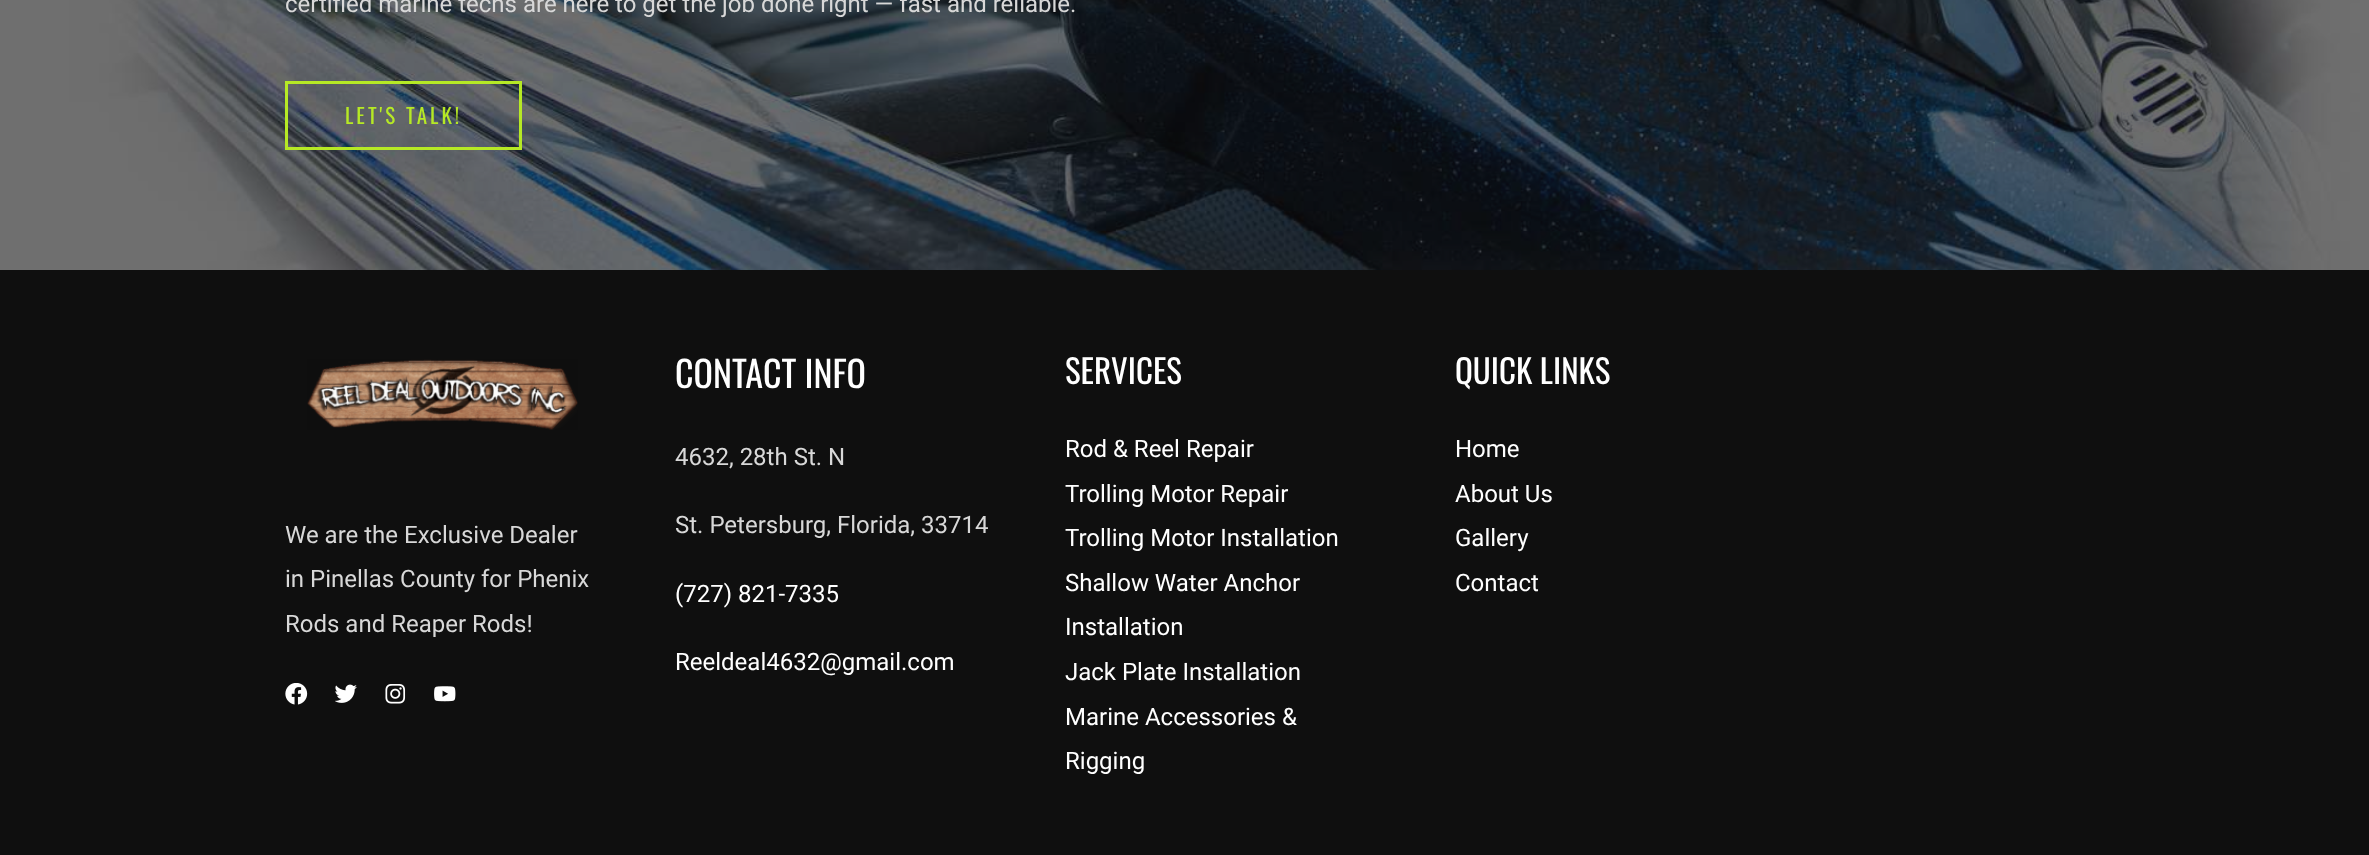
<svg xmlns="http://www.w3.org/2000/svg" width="2369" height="855">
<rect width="100%" height="100%" fill="#0f0f0f"/>
<image x="0" y="0" width="2369" height="270" href="media/1.png"/>
<text x="285" y="12" style="font-family:Roboto;font-size:24px;fill:#d8d8d8">certified marine techs are here to get the job done right — fast and reliable.</text>
<rect x="286.5" y="82.5" width="234" height="66" fill="none" stroke="#b6e925" stroke-width="3"/>
<text x="345" y="124" style="font-family:Oswald;font-size:21px;letter-spacing:3px;fill:#b6e925">LET'S TALK!</text>
<image x="307" y="359" width="271" height="71" href="media/2.png"/>
<text x="285" y="543" style="font-family:Roboto;font-size:24px;fill:#d8d8d8">We are the Exclusive Dealer</text>
<text x="285" y="587" style="font-family:Roboto;font-size:24px;fill:#d8d8d8">in Pinellas County for Phenix</text>
<text x="285" y="632" style="font-family:Roboto;font-size:24px;fill:#d8d8d8">Rods and Reaper Rods!</text>
<image x="285" y="683" width="23" height="22" href="media/3.png"/>
<image x="335" y="684" width="22" height="19" href="media/4.png"/>
<image x="385" y="684" width="21" height="20" href="media/5.png"/>
<image x="434" y="686" width="22" height="16" href="media/6.png"/>
<text x="675" y="388" style="font-family:Oswald;font-size:36px;fill:#fff">CONTACT INFO</text>
<text x="675" y="465" style="font-family:Roboto;font-size:24px;fill:#d8d8d8">4632, 28th St. N</text>
<text x="675" y="533" style="font-family:Roboto;font-size:24px;fill:#d8d8d8">St. Petersburg, Florida, 33714</text>
<text x="675" y="602" style="font-family:Roboto;font-size:24px;fill:#fff">(727) 821-7335</text>
<text x="675" y="670" style="font-family:Roboto;font-size:24px;fill:#fff">Reeldeal4632@gmail.com</text>
<text x="1065" y="384" style="font-family:Oswald;font-size:33px;fill:#fff">SERVICES</text>
<text x="1065" y="457" style="font-family:Roboto;font-size:24px;fill:#fff">Rod &amp; Reel Repair</text>
<text x="1065" y="502" style="font-family:Roboto;font-size:24px;fill:#fff">Trolling Motor Repair</text>
<text x="1065" y="546" style="font-family:Roboto;font-size:24px;fill:#fff">Trolling Motor Installation</text>
<text x="1065" y="591" style="font-family:Roboto;font-size:24px;fill:#fff">Shallow Water Anchor</text>
<text x="1065" y="635" style="font-family:Roboto;font-size:24px;fill:#fff">Installation</text>
<text x="1065" y="680" style="font-family:Roboto;font-size:24px;fill:#fff">Jack Plate Installation</text>
<text x="1065" y="725" style="font-family:Roboto;font-size:24px;fill:#fff">Marine Accessories &amp;</text>
<text x="1065" y="769" style="font-family:Roboto;font-size:24px;fill:#fff">Rigging</text>
<text x="1455" y="384" style="font-family:Oswald;font-size:33px;fill:#fff">QUICK LINKS</text>
<text x="1455" y="457" style="font-family:Roboto;font-size:24px;fill:#fff">Home</text>
<text x="1455" y="502" style="font-family:Roboto;font-size:24px;fill:#fff">About Us</text>
<text x="1455" y="546" style="font-family:Roboto;font-size:24px;fill:#fff">Gallery</text>
<text x="1455" y="591" style="font-family:Roboto;font-size:24px;fill:#fff">Contact</text>
</svg>
